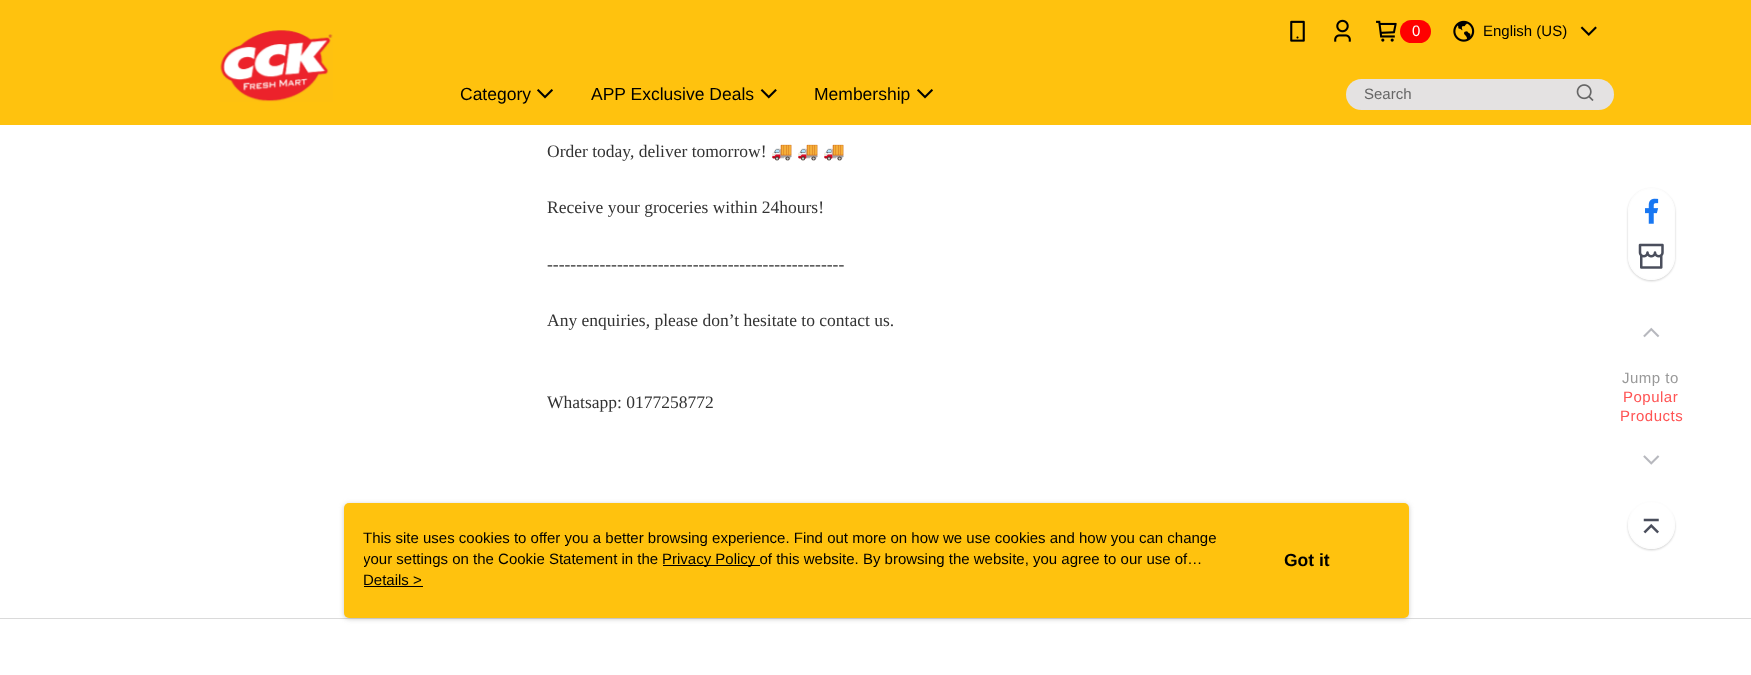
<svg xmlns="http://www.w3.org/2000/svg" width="1751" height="675">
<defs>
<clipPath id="clip1"><path d="M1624 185h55v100h-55zm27.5 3c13 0 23.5 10.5 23.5 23.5v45c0 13-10.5 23.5-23.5 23.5c-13 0-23.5-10.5-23.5-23.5v-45c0-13 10.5-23.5 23.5-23.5z" clip-rule="evenodd"/></clipPath>
<clipPath id="clip2"><path d="M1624 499h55v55h-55zm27.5 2c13 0 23.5 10.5 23.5 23.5v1c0 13-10.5 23.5-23.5 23.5c-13 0-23.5-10.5-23.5-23.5v-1c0-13 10.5-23.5 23.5-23.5z" clip-rule="evenodd"/></clipPath>
<clipPath id="clip3"><rect x="364" y="528" width="862" height="42"/></clipPath>
</defs>
<rect width="100%" height="100%" fill="#fff"/>
<rect width="1751" height="125" fill="#ffc20e"/>
<image x="220" y="30" width="113" height="72" href="media/1.png"/>
<image x="1290" y="20" width="15" height="22" href="media/2.png"/>
<image x="1334" y="19" width="17" height="23" href="media/3.png"/>
<image x="1376" y="20" width="21" height="22" href="media/4.png"/>
<rect x="1400" y="20" width="31" height="23" rx="11.5" fill="#f00"/>
<text x="1412" y="36" style="font-family:Liberation Sans;font-size:15px;fill:#fff">0</text>
<image x="1453" y="20" width="22" height="22" href="media/5.png"/>
<text x="1483" y="36" style="font-family:Liberation Sans;font-size:15px;fill:#000">English (US)</text>
<image x="1580" y="26" width="17" height="10" href="media/6.png"/>
<text x="460" y="100" style="font-family:Liberation Sans;font-size:17.5px;fill:#000">Category</text>
<image x="537" y="89" width="16" height="10" href="media/7.png"/>
<text x="591" y="100" style="font-family:Liberation Sans;font-size:17.5px;fill:#000">APP Exclusive Deals</text>
<image x="760" y="89" width="17" height="10" href="media/8.png"/>
<text x="814" y="100" style="font-family:Liberation Sans;font-size:17.5px;fill:#000">Membership</text>
<image x="917" y="89" width="16" height="10" href="media/7.png"/>
<rect x="1346" y="79" width="268" height="31" rx="15.5" fill="#e4e2e2"/>
<text x="1364" y="99" style="font-family:Liberation Sans;font-size:15px;fill:#666">Search</text>
<image x="1576" y="84" width="18" height="17" href="media/9.png"/>
<text x="547" y="157" style="font-family:Liberation Serif;font-size:17.5px;fill:#333">Order today, deliver tomorrow!</text>
<text x="771" y="157" style="font-family:Noto Color Emoji;font-size:17.5px;fill:#333">🚚</text>
<text x="797" y="157" style="font-family:Noto Color Emoji;font-size:17.5px;fill:#333">🚚</text>
<text x="823" y="157" style="font-family:Noto Color Emoji;font-size:17.5px;fill:#333">🚚</text>
<text x="547" y="213" style="font-family:Liberation Serif;font-size:17.5px;fill:#333">Receive your groceries within 24hours!</text>
<text x="547" y="270" style="font-family:Liberation Serif;font-size:17.5px;fill:#333">---------------------------------------------------</text>
<text x="547" y="326" style="font-family:Liberation Serif;font-size:17.5px;fill:#333">Any enquiries, please don’t hesitate to contact us.</text>
<text x="547" y="408" style="font-family:Liberation Serif;font-size:17.5px;fill:#333">Whatsapp: 0177258772</text>
<g clip-path="url(#clip1)">
<rect x="1628" y="189" width="47" height="92" rx="23.5" fill="#00000033" filter="blur(1px)"/>
</g>
<rect x="1628.5" y="188.5" width="46" height="91" rx="23" fill="#ffffffe6" stroke="#fdfdfd"/>
<image x="1645" y="198" width="14" height="26" href="media/10.png"/>
<image x="1638" y="243" width="26" height="26" href="media/11.png"/>
<image x="1643" y="327" width="17" height="11" href="media/12.png"/>
<text x="1622" y="383" style="font-family:Liberation Sans;font-size:15px;letter-spacing:0.5px;fill:#999">Jump to</text>
<text x="1623" y="402" style="font-family:Liberation Sans;font-size:15px;letter-spacing:0.5px;fill:#ff5353">Popular</text>
<text x="1620" y="421" style="font-family:Liberation Sans;font-size:15px;letter-spacing:0.5px;fill:#ff5353">Products</text>
<image x="1643" y="455" width="17" height="10" href="media/13.png"/>
<g clip-path="url(#clip2)">
<rect x="1628" y="503" width="47" height="47" rx="23.5" fill="#00000033" filter="blur(1px)"/>
</g>
<rect x="1628.5" y="501.5" width="46" height="47" rx="23" fill="#ffffffe6" stroke="#fdfdfd"/>
<image x="1643" y="518" width="16" height="16" href="media/14.png"/>
<rect y="618" width="1751" height="1" fill="#dadada"/>
<rect x="344" y="504" width="1065" height="115" rx="5" fill="#97979780" filter="blur(2.5px)"/>
<rect x="344" y="503" width="1065" height="115" rx="5" fill="#ffc20e"/>
<text x="363" y="543" style="font-family:Liberation Sans;font-size:15px;fill:#000">This site uses cookies to offer you a better browsing experience. Find out more on how we use cookies and how you can change</text>
<g clip-path="url(#clip3)">
<text x="363" y="564" style="font-family:Liberation Sans;font-size:15px;fill:#000">your settings on the Cookie Statement in the</text>
</g>
<rect x="663" y="565" width="97" height="1" fill="#000"/>
<text x="662" y="564" style="font-family:Liberation Sans;font-size:15px;fill:#000">Privacy Policy of this website. By browsing the website, you agree to our use of…</text>
<text x="363" y="585" style="font-family:Liberation Sans;font-size:15px;fill:#000">Details &gt;</text>
<rect x="364" y="586" width="59" height="1" fill="#000"/>
<text x="1284" y="566" style="font-family:Liberation Sans;font-size:17.5px;font-weight:bold;fill:#000">Got it</text>
</svg>
